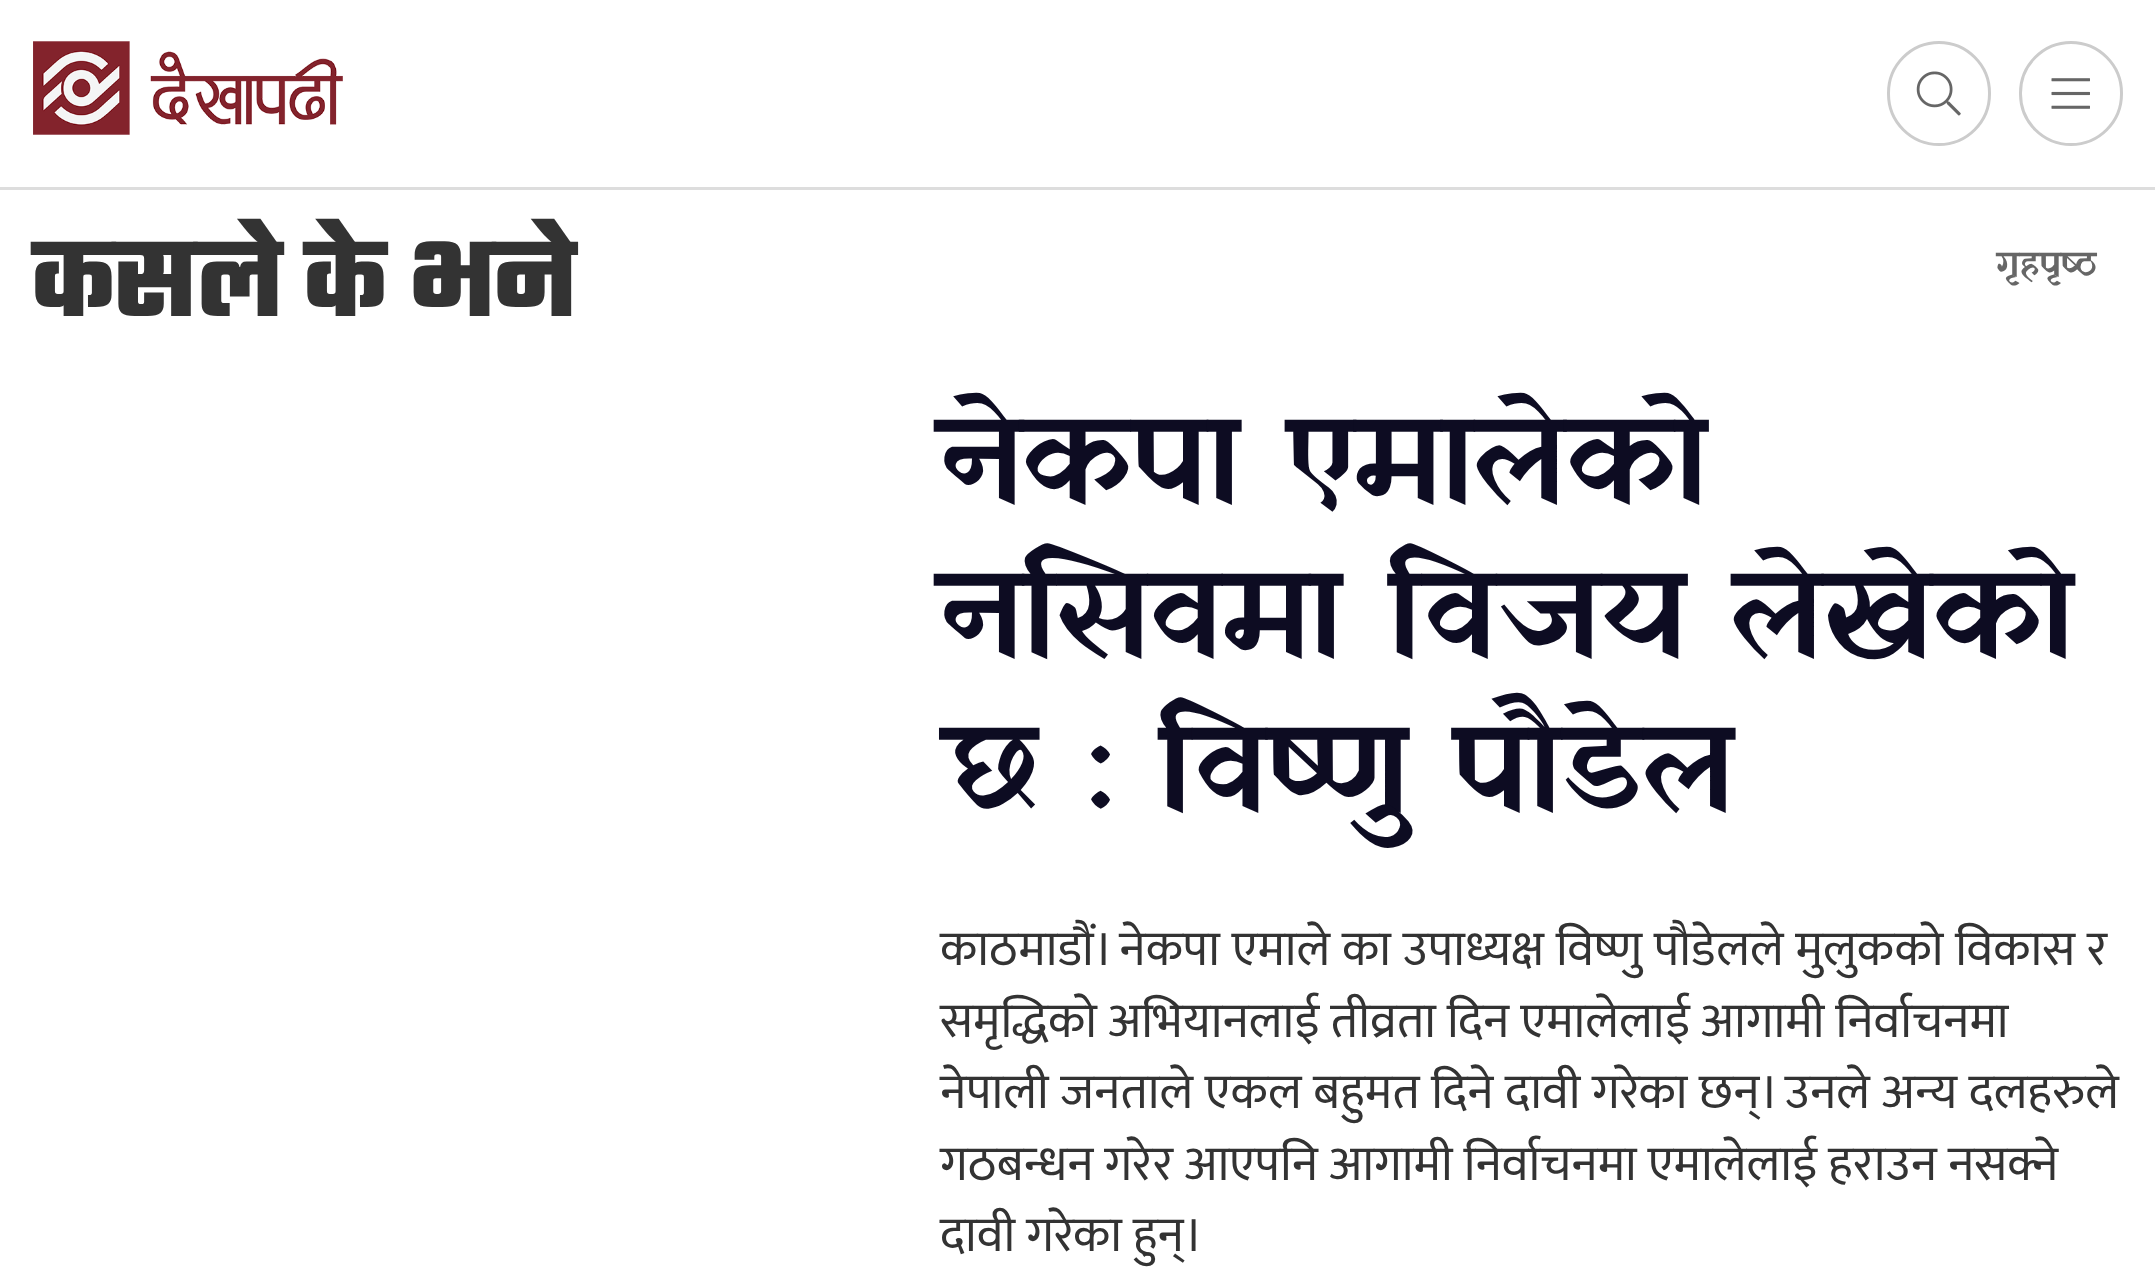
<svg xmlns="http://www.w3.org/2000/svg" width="2155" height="1269">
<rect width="100%" height="100%" fill="#fff"/>
<rect y="187" width="2155" height="3" fill="#ddd"/>
<image x="33" y="41" width="310" height="94" href="media/1.png"/>
<rect x="1888.5" y="42.5" width="101" height="102" rx="50.5" fill="none" stroke="#ccc" stroke-width="3"/>
<image x="1916" y="71" width="45" height="45" href="media/2.png"/>
<rect x="2020.5" y="42.5" width="101" height="102" rx="50.5" fill="none" stroke="#ccc" stroke-width="3"/>
<image x="2051" y="78" width="39" height="31" href="media/3.png"/>
<text x="33" y="316" style="font-family:Teko;font-size:115.5px;font-weight:300;fill:#333">कसले के भने</text>
<text x="1996" y="275" style="font-family:Yatra One;font-size:36px;fill:#666">गृहपृष्ठ</text>
<text x="940" y="498" style="font-family:Yatra One;font-size:126.5px;fill:#0d0c22">नेकपा एमालेको</text>
<text x="940" y="652" style="font-family:Yatra One;font-size:126.5px;fill:#0d0c22">नसिवमा विजय लेखेको</text>
<text x="940" y="806" style="font-family:Yatra One;font-size:126.5px;fill:#0d0c22">छ : विष्णु पौडेल</text>
<text x="940" y="965" word-spacing="0.75" style="font-family:Mukta;font-size:49.5px;fill:#333">काठमाडौं। नेकपा एमाले का उपाध्यक्ष विष्णु पौडेलले मुलुकको विकास र</text>
<text x="940" y="1037" style="font-family:Mukta;font-size:49.5px;fill:#333">समृद्धिको अभियानलाई तीव्रता दिन एमालेलाई आगामी निर्वाचनमा</text>
<text x="940" y="1108" word-spacing="0.5" style="font-family:Mukta;font-size:49.5px;fill:#333">नेपाली जनताले एकल बहुमत दिने दावी गरेका छन्। उनले अन्य दलहरुले</text>
<text x="940" y="1180" style="font-family:Mukta;font-size:49.5px;fill:#333">गठबन्धन गरेर आएपनि आगामी निर्वाचनमा एमालेलाई हराउन नसक्ने</text>
<text x="940" y="1251" style="font-family:Mukta;font-size:49.5px;fill:#333">दावी गरेका हुन्।</text>
</svg>
